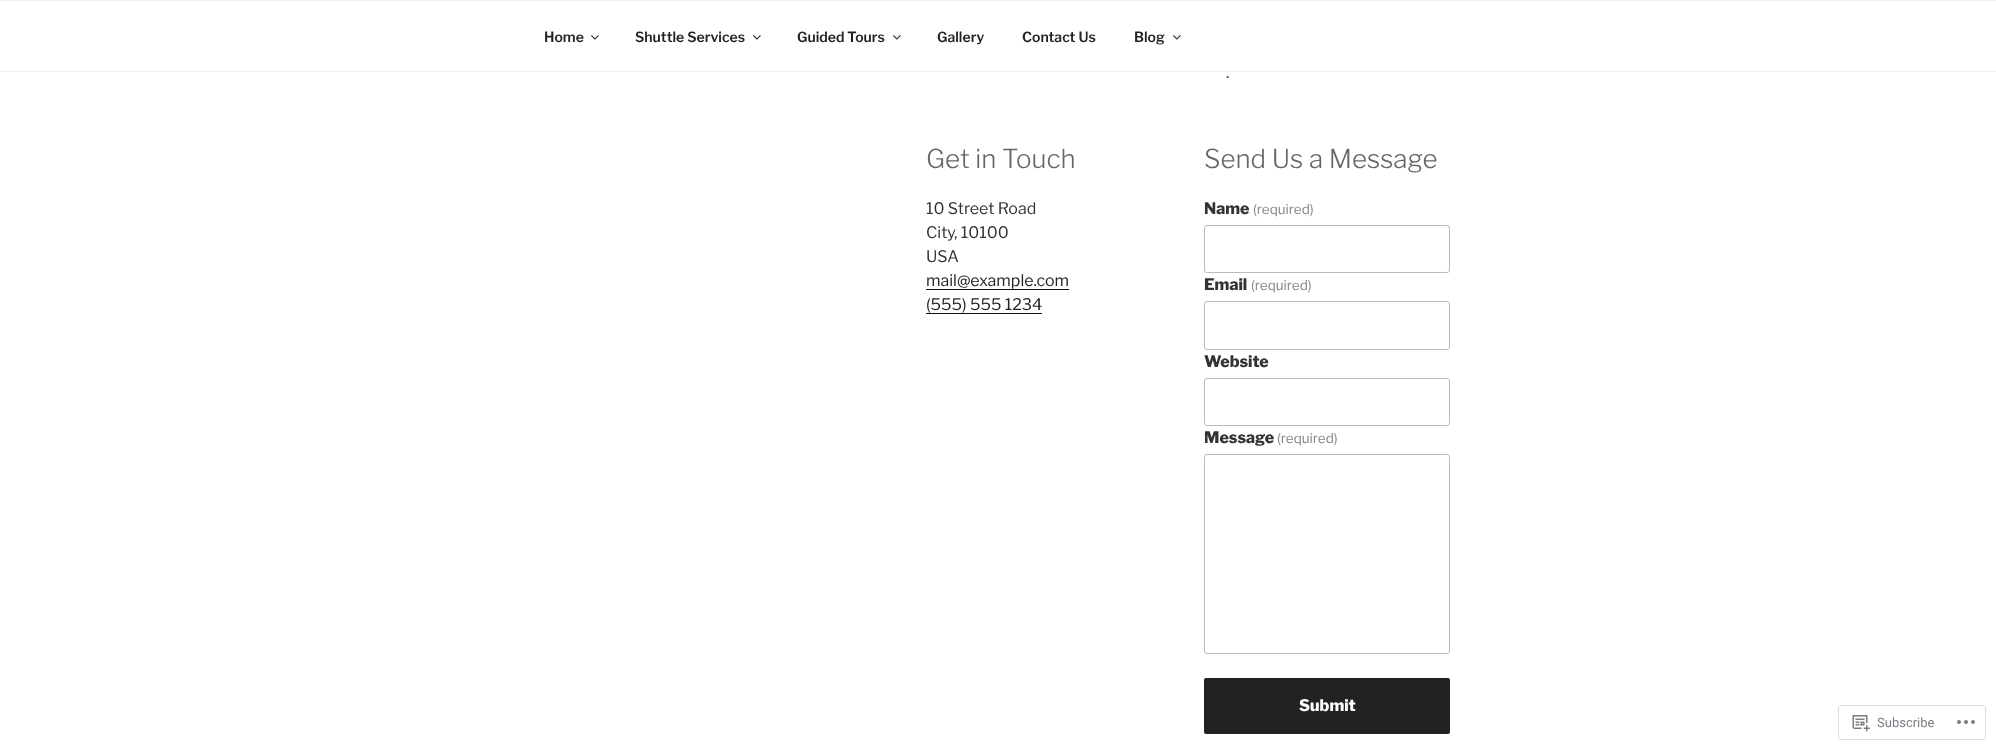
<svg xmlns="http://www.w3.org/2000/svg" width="1996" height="750">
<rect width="100%" height="100%" fill="#fff"/>
<rect width="1996" height="1" fill="#eee"/>
<rect y="71" width="1996" height="1" fill="#eee"/>
<text x="544" y="42" style="font-family:'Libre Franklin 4';font-size:14px;font-weight:100;fill:#222">Home</text>
<image x="591" y="35" width="8" height="5" href="media/1.png"/>
<text x="635" y="42" style="font-family:'Libre Franklin 4';font-size:14px;font-weight:100;fill:#222">Shuttle Services</text>
<image x="753" y="35" width="8" height="5" href="media/1.png"/>
<text x="797" y="42" style="font-family:'Libre Franklin 4';font-size:14px;font-weight:100;fill:#222">Guided Tours</text>
<image x="893" y="35" width="8" height="5" href="media/1.png"/>
<text x="937" y="42" style="font-family:'Libre Franklin 4';font-size:14px;font-weight:100;fill:#222">Gallery</text>
<text x="1022" y="42" style="font-family:'Libre Franklin 4';font-size:14px;font-weight:100;fill:#222">Contact Us</text>
<text x="1134" y="42" style="font-family:'Libre Franklin 4';font-size:14px;font-weight:100;fill:#222">Blog</text>
<image x="1173" y="35" width="8" height="5" href="media/1.png"/>
<text x="1226" y="78" style="font-family:Libre Franklin;font-size:16px;font-weight:100;fill:#333">.</text>
<text x="926" y="168" style="font-family:'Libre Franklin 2';font-size:26px;font-weight:100;fill:#666">Get in Touch</text>
<text x="926" y="214" style="font-family:Libre Franklin;font-size:16px;font-weight:100;fill:#333">10 Street Road</text>
<text x="926" y="238" style="font-family:Libre Franklin;font-size:16px;font-weight:100;fill:#333">City</text>
<text x="954" y="238" style="font-family:Libre Franklin;font-size:16px;font-weight:100;fill:#333">, 10100</text>
<text x="926" y="262" style="font-family:Libre Franklin;font-size:16px;font-weight:100;fill:#333">USA</text>
<text x="926" y="286" style="font-family:Libre Franklin;font-size:16px;font-weight:100;fill:#222">mail@example.com</text>
<rect x="926" y="289" width="143" height="1" fill="#0f0f0f"/>
<text x="926" y="310" style="font-family:Libre Franklin;font-size:16px;font-weight:100;fill:#222">(555) 555 1234</text>
<rect x="926" y="313" width="116" height="1" fill="#0f0f0f"/>
<text x="1204" y="168" style="font-family:'Libre Franklin 2';font-size:26px;font-weight:100;fill:#666">Send Us a Message</text>
<text x="1204" y="214" style="font-family:'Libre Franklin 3';font-size:16px;font-weight:100;fill:#333">Name</text>
<text x="1253" y="214" style="font-family:Libre Franklin;font-size:13.5px;font-weight:100;fill:#858585">(required)</text>
<rect x="1204.5" y="225.5" width="245" height="47" rx="2.5" fill="none" stroke="#bbb"/>
<text x="1204" y="290" style="font-family:'Libre Franklin 3';font-size:16px;font-weight:100;fill:#333">Email</text>
<text x="1251" y="290" style="font-family:Libre Franklin;font-size:13.5px;font-weight:100;fill:#858585">(required)</text>
<rect x="1204.5" y="301.5" width="245" height="48" rx="2.5" fill="none" stroke="#bbb"/>
<text x="1204" y="367" style="font-family:'Libre Franklin 3';font-size:16px;font-weight:100;fill:#333">Website</text>
<rect x="1204.5" y="378.5" width="245" height="47" rx="2.5" fill="none" stroke="#bbb"/>
<text x="1204" y="443" style="font-family:'Libre Franklin 3';font-size:16px;font-weight:100;fill:#333">Message</text>
<text x="1277" y="443" style="font-family:Libre Franklin;font-size:13.5px;font-weight:100;fill:#858585">(required)</text>
<rect x="1204.5" y="454.5" width="245" height="199" rx="2.5" fill="none" stroke="#bbb"/>
<rect x="1204" y="678" width="246" height="56" rx="2" fill="#222"/>
<text x="1299" y="711" style="font-family:'Libre Franklin 3';font-size:16px;font-weight:100;fill:#fff">Submit</text>
<rect x="1838.5" y="705.5" width="147" height="34" rx="2.5" fill="none" stroke="#dddddf"/>
<image x="1852" y="715" width="18" height="17" href="media/2.png"/>
<text x="1877" y="727" style="font-family:Roboto;font-size:13px;fill:#7b7f85">Subscribe</text>
<image x="1957" y="720" width="18" height="4" href="media/3.png"/>
</svg>
